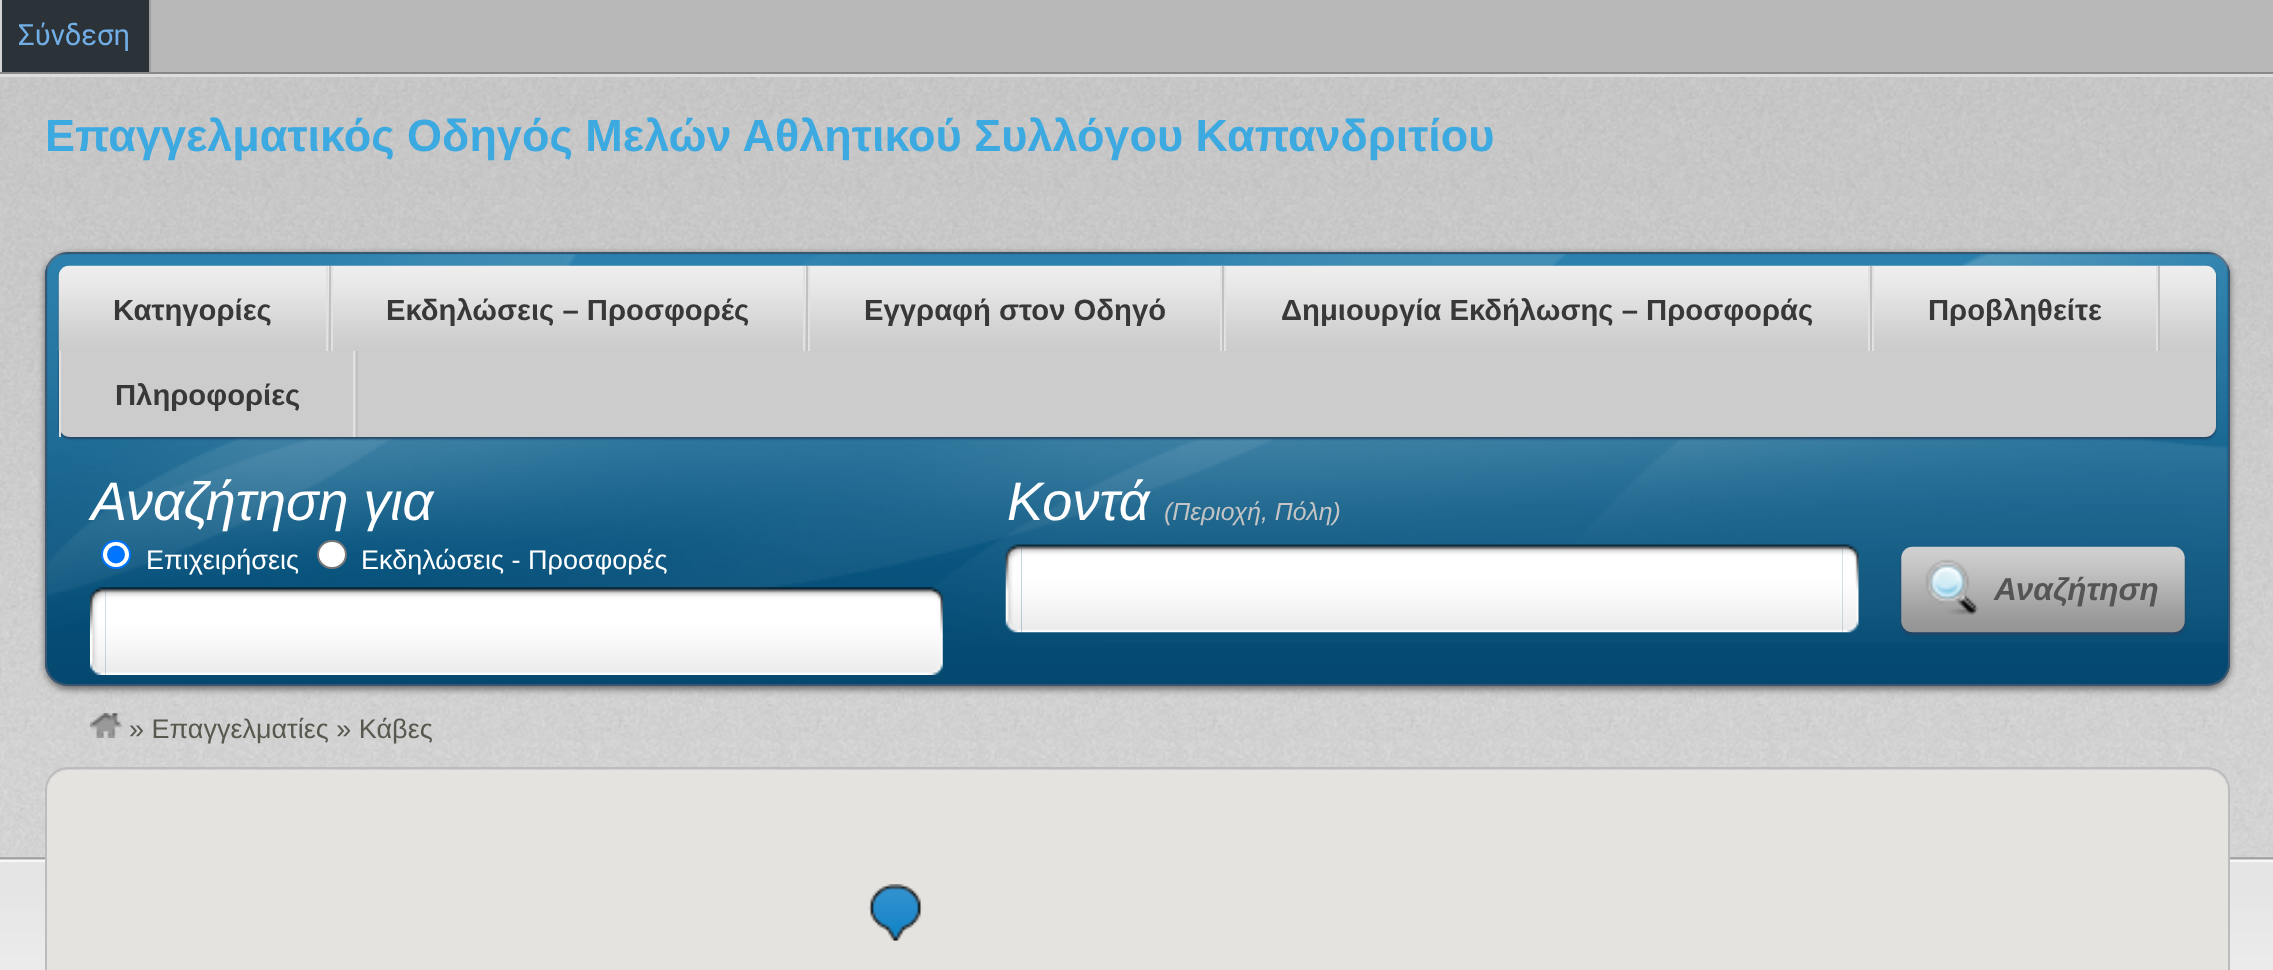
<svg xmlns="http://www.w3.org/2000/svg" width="2273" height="970">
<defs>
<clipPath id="clip1"><rect x="45" y="252" width="2185" height="434" rx="23"/></clipPath>
<linearGradient id="g1" gradientUnits="userSpaceOnUse" x1="1137" y1="254" x2="1137" y2="684"><stop offset="0" stop-color="#086ca0"/><stop offset="1" stop-color="#05486f"/></linearGradient>
</defs>
<rect width="100%" height="100%" fill="#fff"/>
<image x="0" y="77" width="2273" height="781" href="media/1.png"/>
<rect y="74" width="2273" height="3" fill="#ddd"/>
<rect x="151" width="2122" height="72" fill="#b8b8b8"/>
<rect y="72" width="2273" height="2" fill="#888"/>
<rect x="149" width="2" height="72" fill="#9f9f9f"/>
<rect width="2" height="72" fill="#d5d5d5"/>
<rect x="2" width="147" height="72" fill="#2c3338"/>
<text x="18" y="45" style="font-family:Roboto;font-size:29.25px;fill:#72aee6">Σύνδεση</text>
<text x="45" y="151" style="font-family:Liberation Sans;font-size:45px;font-weight:bold;fill:#3caae0">Επαγγελματικός Οδηγός Μελών Αθλητικού Συλλόγου Καπανδριτίου</text>
<rect x="45" y="254" width="2185" height="435" rx="23" fill="#666" filter="blur(3.5px)"/>
<g clip-path="url(#clip1)">
<rect x="45" y="254" width="2185" height="430" fill="url(#g1)"/>
</g>
<rect x="46" y="253" width="2183" height="432" rx="22" fill="none" stroke="#3a5570" stroke-width="2"/>
<image x="47" y="254" width="2181" height="389" href="media/2.png"/>
<rect x="59" y="268" width="2157" height="171" rx="11" fill="#246" filter="blur(1px)"/>
<rect x="59" y="266" width="2157" height="171" rx="11" fill="#ccc"/>
<image x="58" y="265" width="2159" height="86" href="media/3.png"/>
<rect x="329" y="266" width="2" height="85" fill="#c1c1c1"/>
<rect x="326" y="266" width="2" height="85" fill="#e1e1e1"/>
<text x="113" y="320" style="font-family:Liberation Sans;font-size:29.25px;font-weight:bold;fill:#383838">Κατηγορίες</text>
<rect x="806" y="266" width="2" height="85" fill="#c1c1c1"/>
<rect x="331" y="266" width="2" height="85" fill="#e1e1e1"/>
<rect x="803" y="266" width="2" height="85" fill="#e1e1e1"/>
<text x="386" y="320" style="font-family:Liberation Sans;font-size:29.25px;font-weight:bold;fill:#383838">Εκδηλώσεις – Προσφορές</text>
<rect x="1222" y="266" width="2" height="85" fill="#c1c1c1"/>
<rect x="808" y="266" width="2" height="85" fill="#e1e1e1"/>
<rect x="1220" y="266" width="2" height="85" fill="#e1e1e1"/>
<text x="864" y="320" style="font-family:Liberation Sans;font-size:29.25px;font-weight:bold;fill:#383838">Εγγραφή στον Οδηγό</text>
<rect x="1870" y="266" width="2" height="85" fill="#c1c1c1"/>
<rect x="1224" y="266" width="2" height="85" fill="#e1e1e1"/>
<rect x="1868" y="266" width="2" height="85" fill="#e1e1e1"/>
<text x="1281" y="320" style="font-family:Liberation Sans;font-size:29.25px;font-weight:bold;fill:#383838">Δημιουργία Εκδήλωσης – Προσφοράς</text>
<rect x="2158" y="266" width="2" height="85" fill="#c1c1c1"/>
<rect x="1872" y="266" width="2" height="85" fill="#e1e1e1"/>
<rect x="2156" y="266" width="2" height="85" fill="#e1e1e1"/>
<text x="1928" y="320" style="font-family:Liberation Sans;font-size:29.25px;font-weight:bold;fill:#383838">Προβληθείτε</text>
<rect x="356" y="351" width="2" height="86" fill="#c1c1c1"/>
<rect x="59" y="351" width="2" height="86" fill="#e1e1e1"/>
<rect x="353" y="351" width="2" height="86" fill="#e1e1e1"/>
<text x="115" y="405" style="font-family:Liberation Sans;font-size:29.25px;font-weight:bold;fill:#383838">Πληροφορίες</text>
<text x="91" y="520" style="font-family:Liberation Sans;font-size:54px;font-style:italic;fill:#fff">Αναζήτηση για</text>
<rect x="102" y="541" width="28" height="27" rx="13.5" fill="#fff" stroke="#0075ff" stroke-width="2"/>
<circle cx="116" cy="554.5" r="9" fill="#0075ff"/>
<text x="146" y="569" style="font-family:Liberation Sans;font-size:27px;fill:#fff">Επιχειρήσεις</text>
<rect x="318" y="541" width="28" height="27" rx="13.5" fill="#fff" stroke="#767676" stroke-width="2"/>
<text x="361" y="569" style="font-family:Liberation Sans;font-size:27px;fill:#fff">Εκδηλώσεις - Προσφορές</text>
<image x="90" y="587" width="16" height="88" href="media/4.png"/>
<image x="105" y="587" width="822" height="88" href="media/5.png"/>
<image x="927" y="587" width="16" height="88" href="media/6.png"/>
<text x="1007" y="520" style="font-family:Liberation Sans;font-size:54px;font-style:italic;fill:#fff">Κοντά</text>
<text x="1164" y="520" style="font-family:Liberation Sans;font-size:24.75px;font-style:italic;fill:#c4c4c4">(Περιοχή, Πόλη)</text>
<image x="1005" y="544" width="17" height="89" href="media/7.png"/>
<image x="1021" y="544" width="822" height="89" href="media/8.png"/>
<image x="1842" y="544" width="17" height="89" href="media/9.png"/>
<rect x="1901" y="549" width="284" height="86" rx="11" fill="#246" filter="blur(1px)"/>
<image x="1901" y="546" width="284" height="87" href="media/10.png"/>
<text x="1994" y="600" style="font-family:Liberation Sans;font-size:31.5px;font-weight:bold;font-style:italic;fill:#555">Αναζήτηση</text>
<image x="90" y="713" width="32" height="25" href="media/11.png"/>
<text x="129" y="738" style="font-family:Liberation Sans;font-size:27px;fill:#59584f">» Επαγγελματίες » Κάβες</text>
<image x="0" y="857" width="2273" height="113" href="media/12.png"/>
<rect x="46" y="768" width="2183" height="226" rx="22" fill="none" stroke="#bdbcbd" stroke-width="2"/>
<rect x="47" y="770" width="2181" height="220" rx="20" fill="#e5e3df"/>
<image x="47" y="769" width="20" height="21" href="media/13.png"/>
<image x="2207" y="769" width="21" height="21" href="media/14.png"/>
<image x="868" y="884" width="55" height="57" href="media/15.png"/>
</svg>
